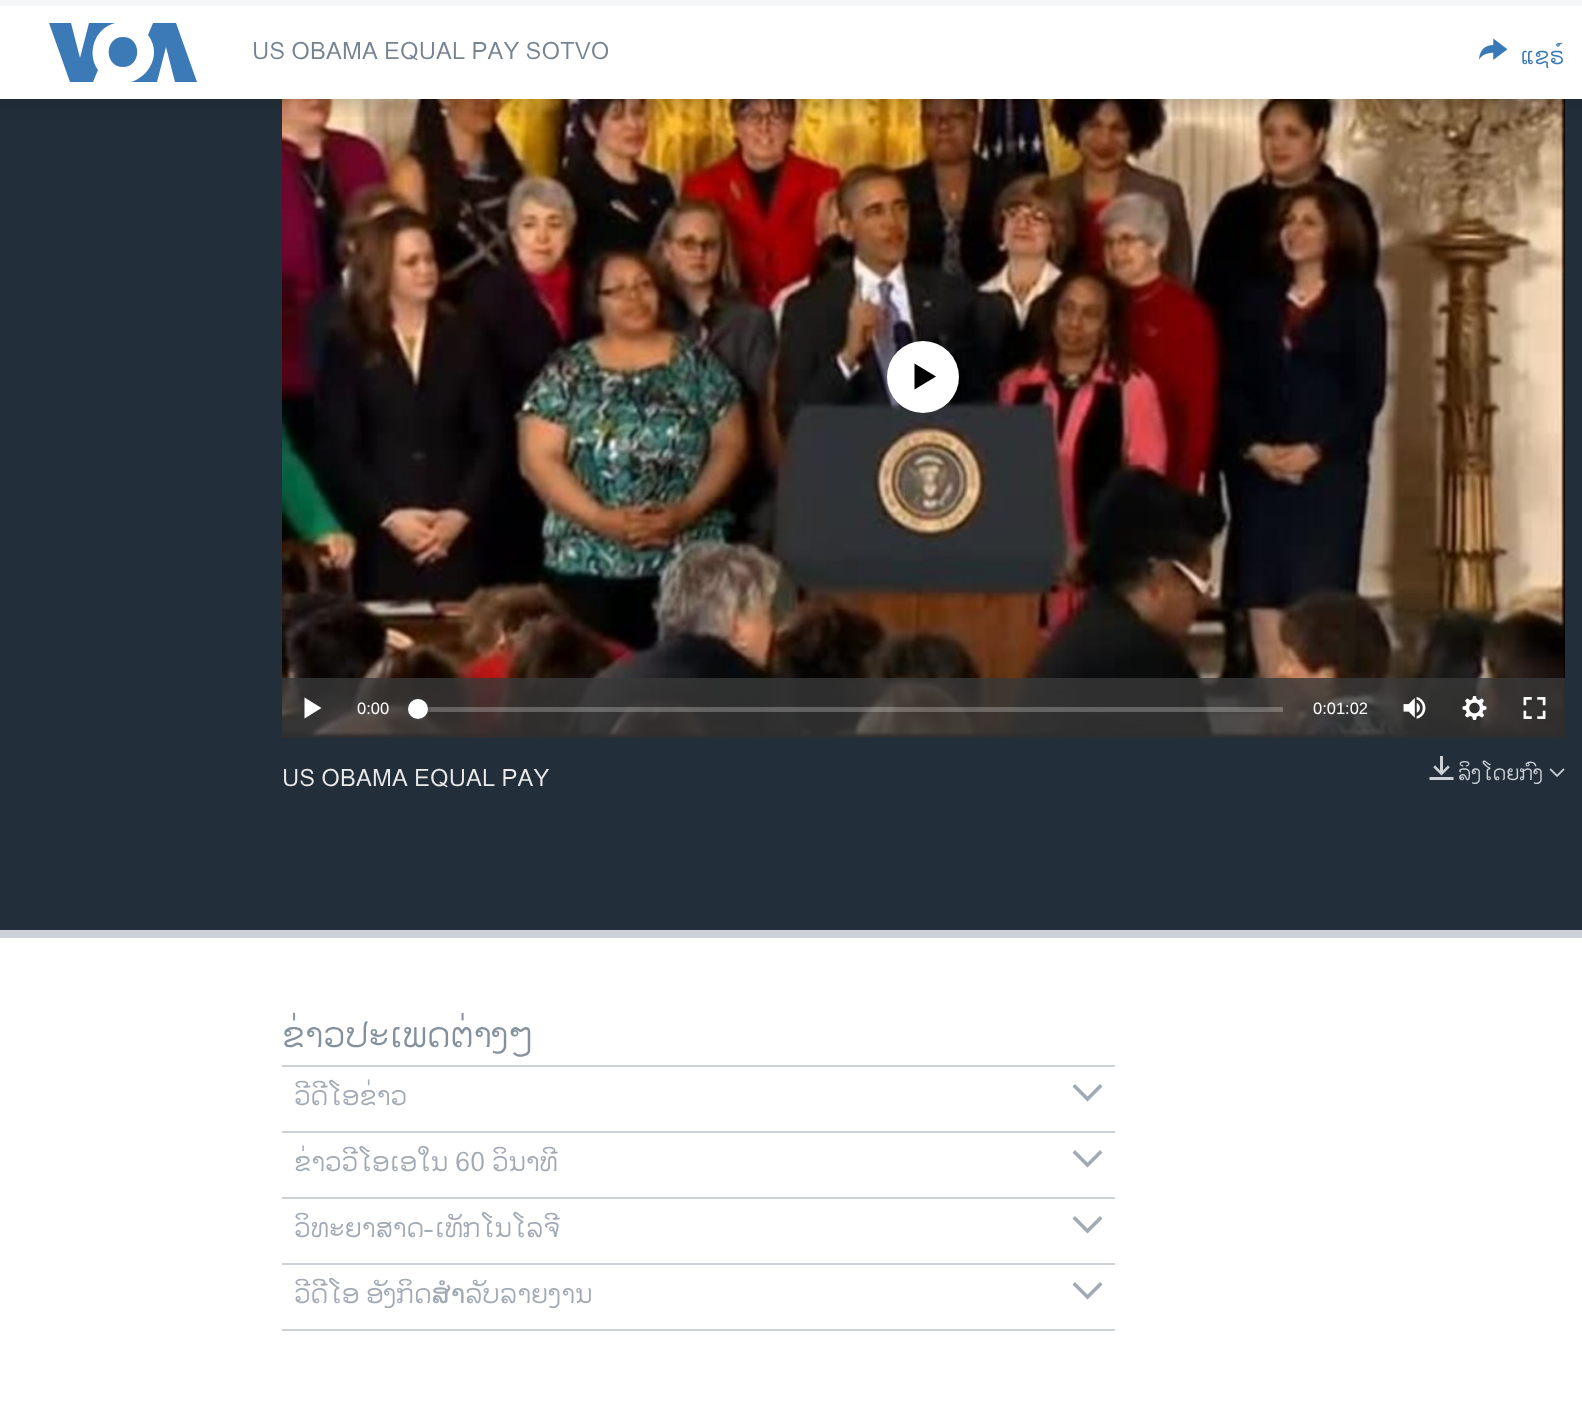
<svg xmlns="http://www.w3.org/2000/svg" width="1582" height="1406">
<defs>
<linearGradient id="g1" gradientUnits="userSpaceOnUse" x1="923" y1="16" x2="923" y2="122"><stop offset="0" stop-color="#000" stop-opacity="0.5"/><stop offset="1" stop-color="#000" stop-opacity="0"/></linearGradient>
</defs>
<rect width="100%" height="100%" fill="#fff"/>
<rect y="99" width="1582" height="831" fill="#222f3a"/>
<rect x="282" y="99" width="1283" height="639" fill="#000"/>
<image x="282" y="99" width="1283" height="639" href="media/2.png"/>
<rect x="282" y="99" width="1282" height="18" fill="url(#g1)"/>
<rect y="8" width="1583" height="99" fill="#0000001a" filter="blur(7.5px)"/>
<rect y="6" width="1582" height="93" fill="#fff"/>
<rect width="1582" height="6" fill="#f6f7f8"/>
<path d="M98 70l-5 12h-23l-21-59h22l9 35l9-35h26c-20 5-29 30-17 47zm25-33c-19 0-19 30 0 30c19 0 19-30 0-30zm31 15c0 14-10 26-23 30h26l9-35l9 35h22l-21-59h-23l-5 12c4 5 6 11 6 17z" fill="#3b79b7"/>
<text x="252" y="59" style="font-family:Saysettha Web;font-size:24px;fill:#768492">US OBAMA EQUAL PAY SOTVO</text>
<image x="1479" y="38" width="29" height="22" href="media/1.png"/>
<text x="1520" y="64" style="font-family:Saysettha Web;font-size:24px;fill:#3a79b7">ແຊຣ໌</text>
<rect y="930" width="1582" height="8" fill="#cbd1d6"/>
<circle cx="923" cy="377" r="36" fill="#fff"/>
<path d="M914.5 389.5l21.5-13l-21.5-13z" fill="#000"/>
<rect x="282" y="678" width="1283" height="60" fill="#383838cc"/>
<path d="M304.5 718.5l17-10.5l-17-10.5z" fill="#fff"/>
<text x="357" y="714" style="font-family:Liberation Sans;font-size:16.5px;fill:#fff">0:00</text>
<rect x="419" y="707" width="864" height="5" fill="#ffffff40"/>
<rect x="408" y="699" width="20" height="20" rx="10" fill="#414144" filter="blur(2px)"/>
<circle cx="418" cy="709" r="10" fill="#fff"/>
<text x="1313" y="714" style="font-family:Liberation Sans;font-size:16.5px;fill:#fff">0:01:02</text>
<image x="1403" y="697" width="23" height="22" href="media/3.png"/>
<image x="1462" y="696" width="25" height="24" href="media/4.png"/>
<image x="1523" y="697" width="23" height="22" href="media/5.png"/>
<text x="282" y="786" style="font-family:Saysettha Web;font-size:24px;fill:#ebebeb">US OBAMA EQUAL PAY</text>
<image x="1429" y="756" width="25" height="24" href="media/6.png"/>
<text x="1458" y="780" style="font-family:Saysettha Web;font-size:21px;fill:#cbd1d6">ລິງໂດຍກົງ</text>
<image x="1549" y="768" width="16" height="9" href="media/7.png"/>
<rect x="282" y="1065" width="833" height="2" fill="#cbd1d6"/>
<text x="282" y="1047" style="font-family:Saysettha Web;font-size:36px;fill:#84919d">ຂ່າວປະເພດຕ່າງໆ</text>
<rect x="282" y="1131" width="833" height="2" fill="#cbd1d6"/>
<text x="294" y="1105" style="font-family:Saysettha Web;font-size:27px;fill:#a1aab4">ວີດີໂອຂ່າວ</text>
<path d="M1072.5 1086.5l15 15l15-15l-2.5-2.5l-12.5 12.5l-12.5-12.5z" fill="#a1aab4"/>
<rect x="282" y="1197" width="833" height="2" fill="#cbd1d6"/>
<text x="294" y="1171" style="font-family:Saysettha Web;font-size:27px;fill:#a1aab4">ຂ່າວວີໂອເອໃນ 60 ວິນາທີ</text>
<path d="M1072.5 1152.5l15 15l15-15l-2.5-2.5l-12.5 12.5l-12.5-12.5z" fill="#a1aab4"/>
<rect x="282" y="1263" width="833" height="2" fill="#cbd1d6"/>
<text x="294" y="1237" style="font-family:Saysettha Web;font-size:27px;fill:#a1aab4">ວິທະຍາສາດ-ເທັກໂນໂລຈີ</text>
<path d="M1072.5 1218.5l15 15l15-15l-2.5-2.5l-12.5 12.5l-12.5-12.5z" fill="#a1aab4"/>
<rect x="282" y="1329" width="833" height="2" fill="#cbd1d6"/>
<text x="294" y="1303" style="font-family:Saysettha Web;font-size:27px;fill:#a1aab4">ວີດີໂອ ອັງກິດສຳລັບລາຍງານ</text>
<path d="M1072.5 1284.5l15 15l15-15l-2.5-2.5l-12.5 12.5l-12.5-12.5z" fill="#a1aab4"/>
</svg>
